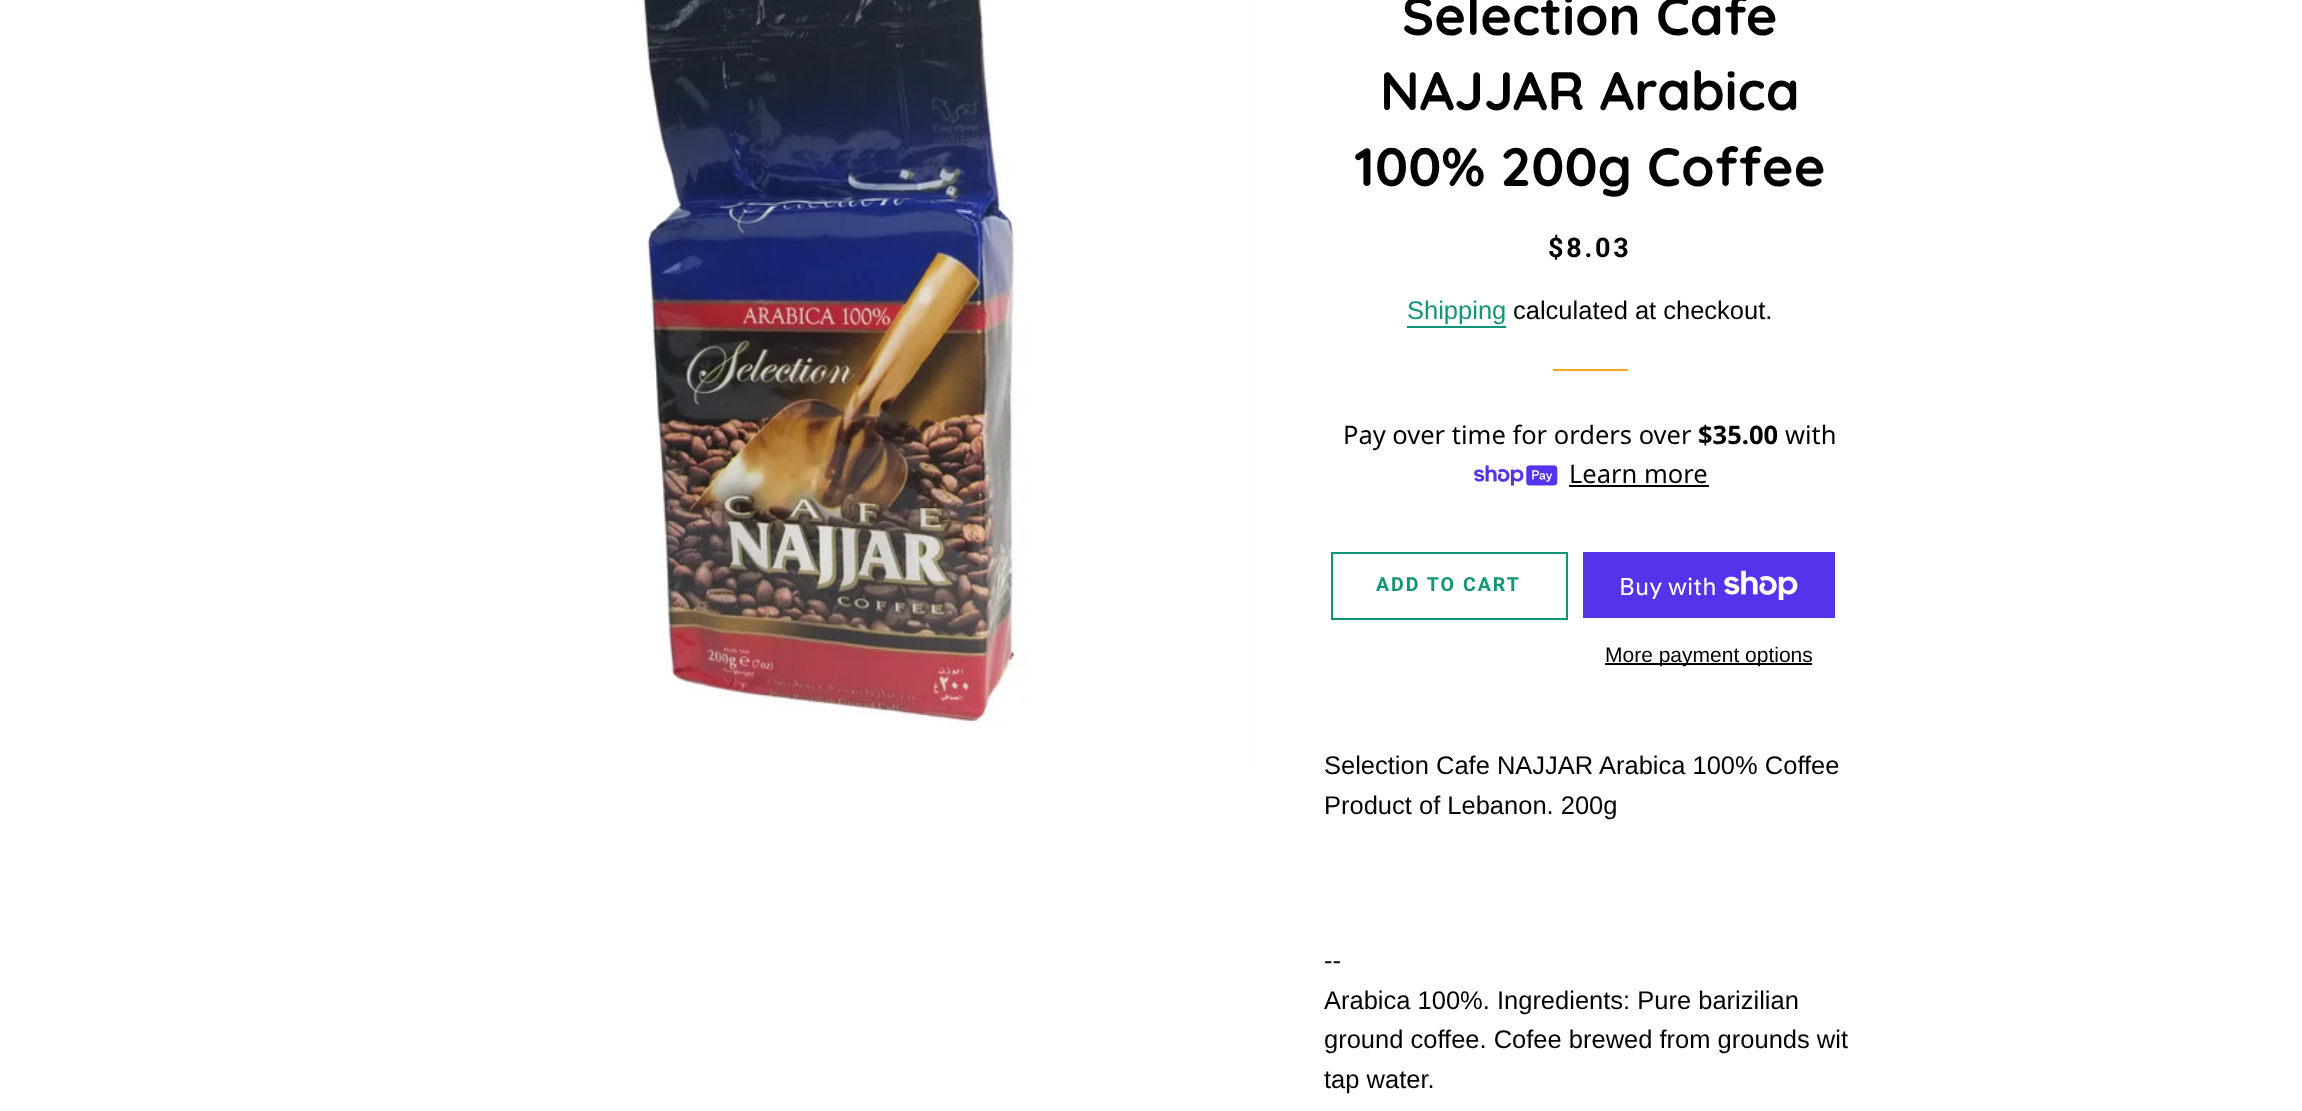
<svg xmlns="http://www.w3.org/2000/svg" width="2302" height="1111">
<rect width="100%" height="100%" fill="#fff"/>
<rect x="1255" width="1" height="771" fill="#fff4f6"/>
<image x="410" y="0" width="846" height="771" href="media/1.png"/>
<text x="1402" y="35" style="font-family:Quicksand;font-size:54px;font-weight:bold;fill:#000">Selection Cafe</text>
<text x="1380" y="110" style="font-family:Quicksand;font-size:54px;font-weight:bold;fill:#000">NAJJAR Arabica</text>
<text x="1354" y="186" style="font-family:Quicksand;font-size:54px;font-weight:bold;fill:#000">100% 200g Coffee</text>
<text x="1548" y="257" style="font-family:Roboto;font-size:27px;font-weight:bold;letter-spacing:2.75px;fill:#000">$8.03</text>
<text x="1407" y="319" style="font-family:Liberation Sans;font-size:25.5px;fill:#119578">Shipping</text>
<rect x="1407" y="326" width="99" height="2" fill="#119578"/>
<text x="1513" y="319" style="font-family:Liberation Sans;font-size:25.5px;fill:#000">calculated at checkout.</text>
<rect x="1553" y="369" width="75" height="2" fill="#fba71b"/>
<text x="1343" y="444" style="font-family:Noto Sans;font-size:25.5px;fill:#000">Pay over time for orders over</text>
<text x="1698" y="444" style="font-family:Noto Sans;font-size:25.5px;font-weight:bold;fill:#000">$35.00</text>
<text x="1785" y="444" style="font-family:Noto Sans;font-size:25.5px;fill:#000">with</text>
<image x="1474" y="465" width="84" height="21" href="media/2.png"/>
<text x="1569" y="483" style="font-family:Noto Sans;font-size:25.5px;fill:#000">Learn more</text>
<rect x="1569" y="485" width="140" height="2" fill="#000"/>
<rect x="1332" y="553" width="235" height="66" fill="none" stroke="#119578" stroke-width="2"/>
<text x="1376" y="591" style="font-family:Roboto;font-size:19.5px;font-weight:bold;letter-spacing:2px;fill:#119578">ADD TO CART</text>
<rect x="1583" y="552" width="252" height="66" fill="#5433eb"/>
<text x="1619" y="595" style="font-family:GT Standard;font-size:24px;fill:#fff">Buy with</text>
<image x="1724" y="570" width="74" height="30" href="media/3.png"/>
<rect x="1605" y="663" width="207" height="2" fill="#000"/>
<text x="1605" y="662" style="font-family:Liberation Sans;font-size:21px;fill:#000">More payment options</text>
<text x="1324" y="774" style="font-family:Liberation Sans;font-size:25.5px;fill:#000">Selection Cafe NAJJAR Arabica 100% Coffee</text>
<text x="1324" y="814" style="font-family:Liberation Sans;font-size:25.5px;fill:#000">Product of Lebanon. 200g</text>
<text x="1324" y="969" style="font-family:Liberation Sans;font-size:25.5px;fill:#000">--</text>
<text x="1324" y="1009" style="font-family:Liberation Sans;font-size:25.5px;fill:#000">Arabica 100%. Ingredients: Pure barizilian</text>
<text x="1324" y="1048" style="font-family:Liberation Sans;font-size:25.5px;fill:#000">ground coffee. Cofee brewed from grounds wit</text>
<text x="1324" y="1088" style="font-family:Liberation Sans;font-size:25.5px;fill:#000">tap water.</text>
</svg>
